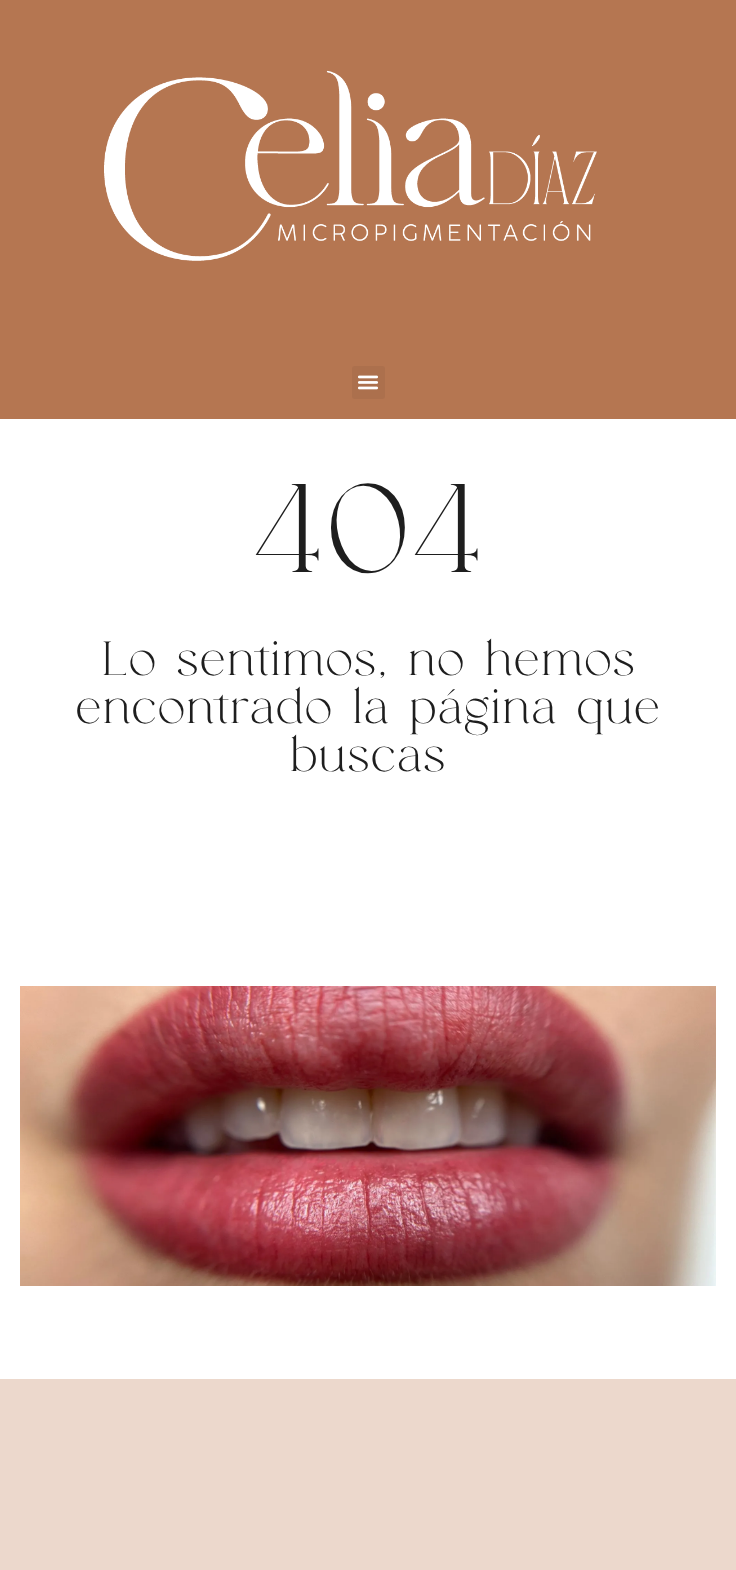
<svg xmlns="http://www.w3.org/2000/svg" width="736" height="1570">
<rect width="100%" height="100%" fill="#fff"/>
<rect width="736" height="419" fill="#b57651"/>
<image x="104" y="70" width="493" height="191" href="media/1.png"/>
<rect x="352" y="366" width="33" height="33" rx="3" fill="#ac704d"/>
<image x="357" y="375" width="22" height="15" href="media/2.png"/>
<text x="252" y="572" style="font-family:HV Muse;font-size:124px;fill:#1e1e1e">404</text>
<text x="101" y="675" style="font-family:HV Muse;font-size:48px;fill:#1e1e1e">Lo sentimos, no hemos</text>
<text x="75" y="723" style="font-family:HV Muse;font-size:48px;fill:#1e1e1e">encontrado la página que</text>
<text x="289" y="771" style="font-family:HV Muse;font-size:48px;fill:#1e1e1e">buscas</text>
<image x="20" y="986" width="696" height="300" href="media/3.png"/>
<rect y="1379" width="736" height="191" fill="#ecd8cc"/>
</svg>
